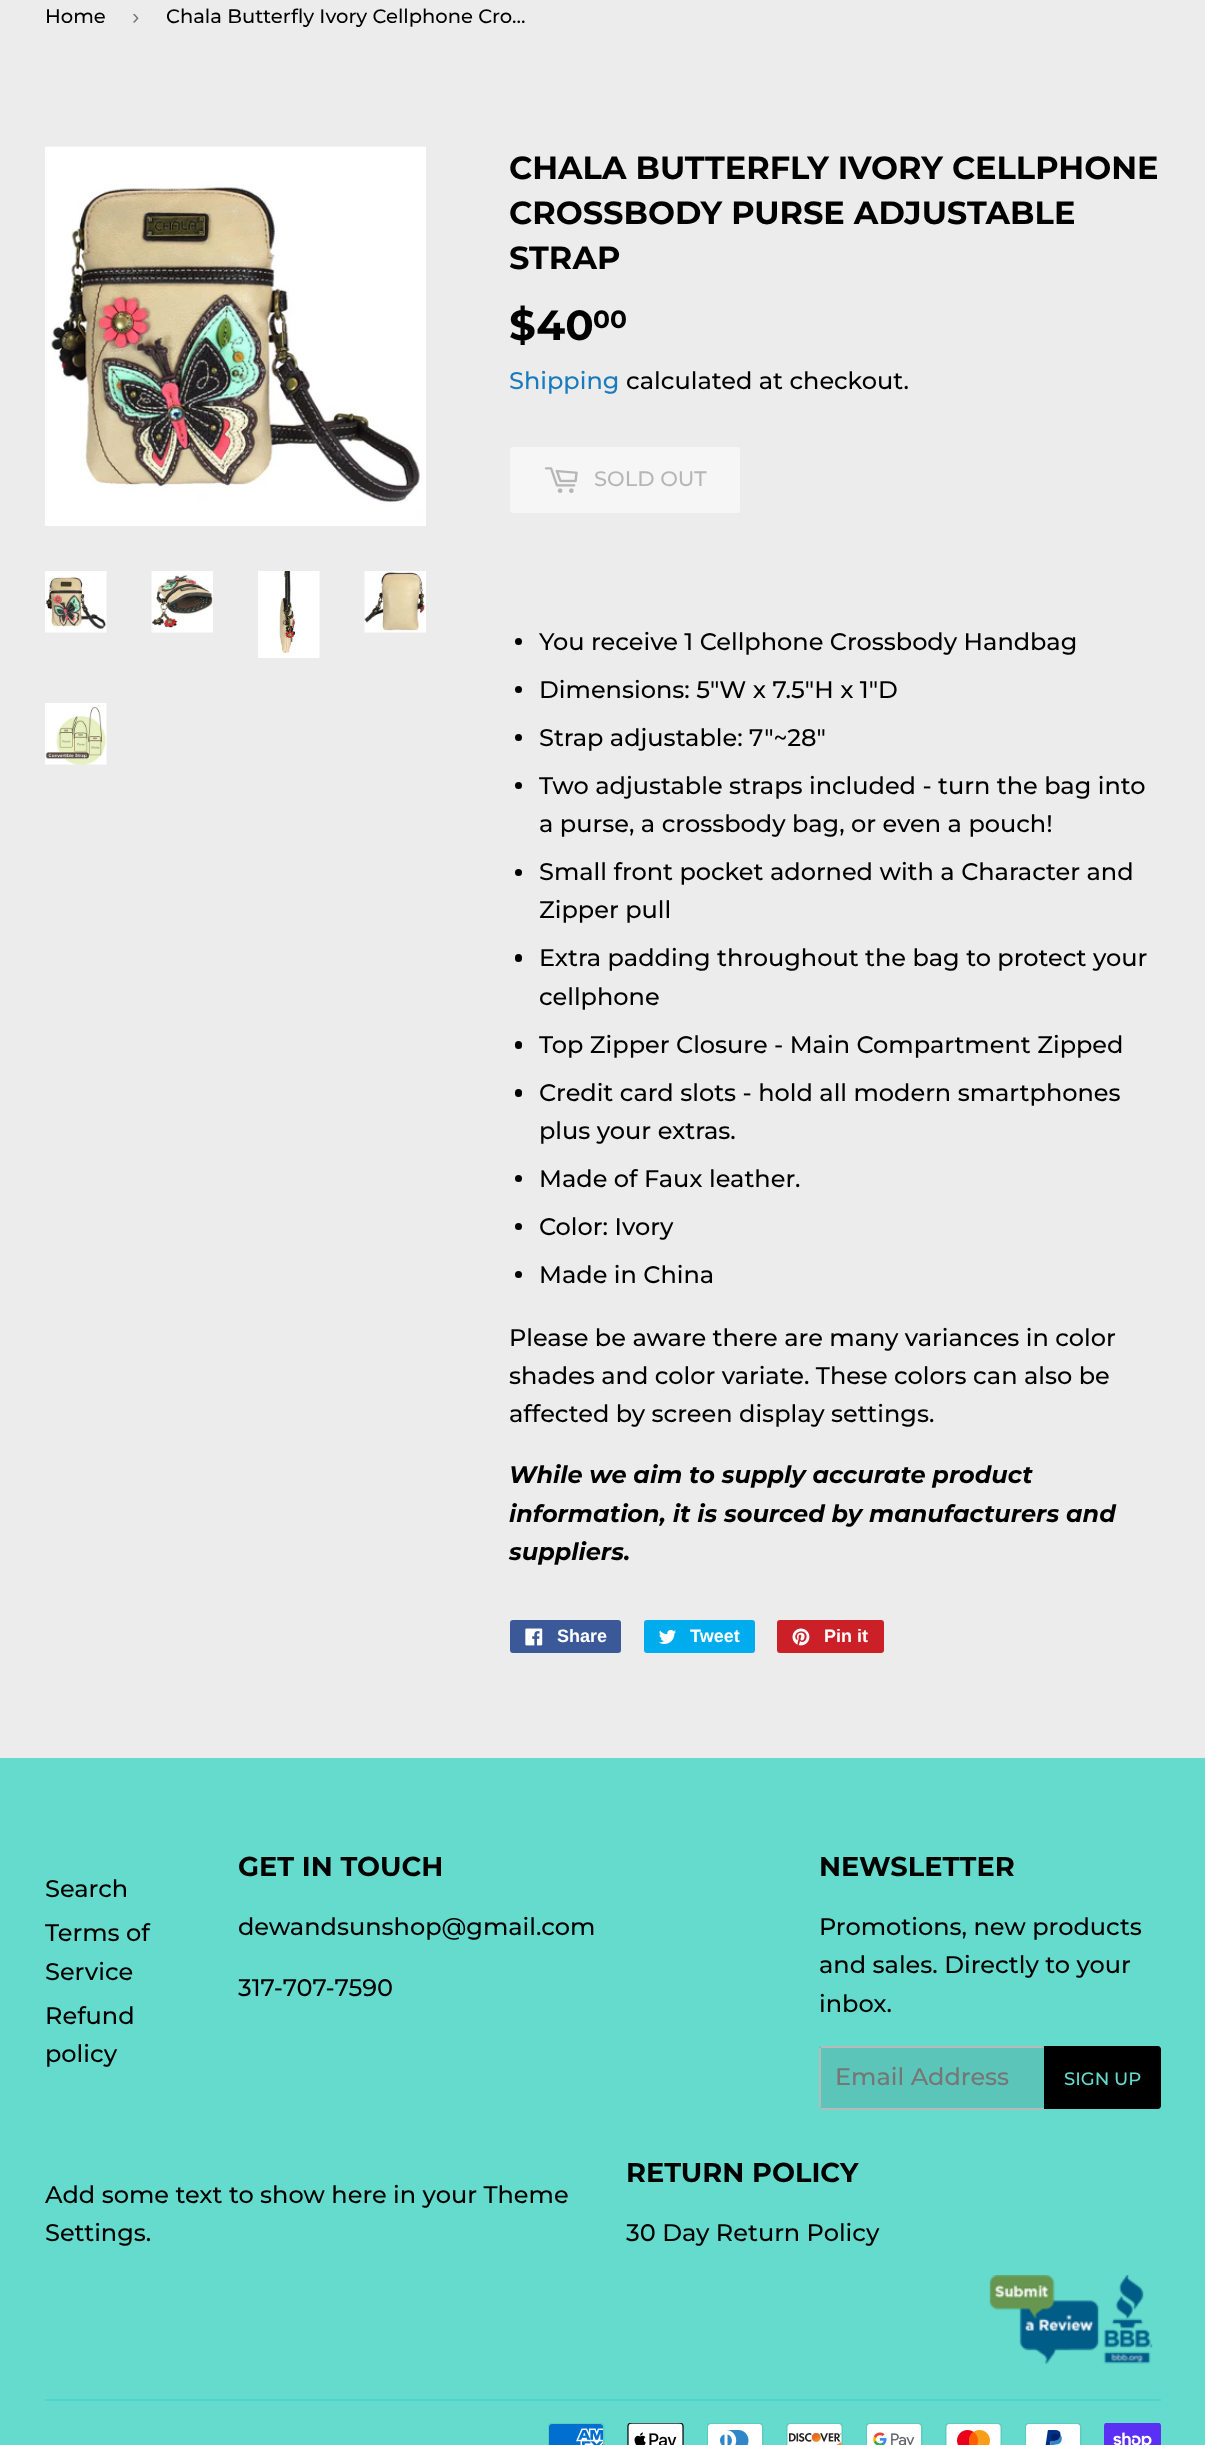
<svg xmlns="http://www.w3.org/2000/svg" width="1205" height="2445">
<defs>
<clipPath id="clip1"><rect x="167" width="375" height="54"/></clipPath>
</defs>
<rect width="100%" height="100%" fill="#ececec"/>
<text x="45" y="23" style="font-family:Montserrat;font-size:19.5px;font-weight:500;fill:#000">Home</text>
<text x="132" y="24" style="font-family:Liberation Sans;font-size:22px;fill:#767676">›</text>
<g clip-path="url(#clip1)">
<text x="166" y="23" style="font-family:Montserrat;font-size:19.5px;font-weight:500;fill:#000">Chala Butterfly Ivory Cellphone Cro…</text>
</g>
<image x="45" y="146" width="381" height="380" href="media/1.png"/>
<image x="45" y="571" width="62" height="62" href="media/2.png"/>
<image x="151" y="571" width="62" height="62" href="media/3.png"/>
<image x="258" y="571" width="62" height="87" href="media/4.png"/>
<image x="364" y="571" width="62" height="62" href="media/5.png"/>
<image x="45" y="703" width="62" height="62" href="media/6.png"/>
<text x="509" y="179" style="font-family:Montserrat;font-size:32px;font-weight:bold;fill:#000">CHALA BUTTERFLY IVORY CELLPHONE</text>
<text x="509" y="224" style="font-family:Montserrat;font-size:32px;font-weight:bold;fill:#000">CROSSBODY PURSE ADJUSTABLE</text>
<text x="509" y="269" style="font-family:Montserrat;font-size:32px;font-weight:bold;fill:#000">STRAP</text>
<text x="509" y="340" style="font-family:Montserrat;font-size:42px;font-weight:bold;fill:#000">$40</text>
<text x="593" y="328" style="font-family:Montserrat;font-size:25px;font-weight:bold;fill:#000">00</text>
<text x="509" y="389" style="font-family:Montserrat;font-size:24px;font-weight:500;fill:#197bbd">Shipping</text>
<text x="626" y="389" style="font-family:Montserrat;font-size:24px;font-weight:500;fill:#000">calculated at checkout.</text>
<rect x="510" y="447" width="230" height="66" rx="3" fill="#f6f6f6"/>
<image x="544" y="467" width="34" height="26" href="media/7.png"/>
<text x="594" y="486" style="font-family:Montserrat;font-size:21px;font-weight:500;fill:#b6b6b6">SOLD OUT</text>
<circle cx="518.5" cy="641.5" r="3.5" fill="#000"/>
<text x="539" y="650" style="font-family:Montserrat;font-size:24px;font-weight:500;fill:#000">You receive 1 Cellphone Crossbody Handbag</text>
<circle cx="518.5" cy="689.5" r="3.5" fill="#000"/>
<text x="539" y="698" style="font-family:Montserrat;font-size:24px;font-weight:500;fill:#000">Dimensions: 5"W x 7.5"H x 1"D</text>
<circle cx="518.5" cy="737.5" r="3.5" fill="#000"/>
<text x="539" y="746" style="font-family:Montserrat;font-size:24px;font-weight:500;fill:#000">Strap adjustable: 7"~28"</text>
<circle cx="518.5" cy="785.5" r="3.5" fill="#000"/>
<text x="539" y="794" style="font-family:Montserrat;font-size:24px;font-weight:500;fill:#000">Two adjustable straps included - turn the bag into</text>
<text x="539" y="832" style="font-family:Montserrat;font-size:24px;font-weight:500;fill:#000">a purse, a crossbody bag, or even a pouch!</text>
<circle cx="518.5" cy="872.5" r="3.5" fill="#000"/>
<text x="539" y="880" style="font-family:Montserrat;font-size:24px;font-weight:500;fill:#000">Small front pocket adorned with a Character and</text>
<text x="539" y="918" style="font-family:Montserrat;font-size:24px;font-weight:500;fill:#000">Zipper pull</text>
<rect x="515" y="954" width="7" height="8" rx="3.5" fill="#000"/>
<text x="539" y="966" style="font-family:Montserrat;font-size:24px;font-weight:500;fill:#000">Extra padding throughout the bag to protect your</text>
<text x="539" y="1005" style="font-family:Montserrat;font-size:24px;font-weight:500;fill:#000">cellphone</text>
<rect x="515" y="1041" width="7" height="8" rx="3.5" fill="#000"/>
<text x="539" y="1053" style="font-family:Montserrat;font-size:24px;font-weight:500;fill:#000">Top Zipper Closure - Main Compartment Zipped</text>
<rect x="515" y="1089" width="7" height="8" rx="3.5" fill="#000"/>
<text x="539" y="1101" style="font-family:Montserrat;font-size:24px;font-weight:500;fill:#000">Credit card slots - hold all modern smartphones</text>
<text x="539" y="1139" style="font-family:Montserrat;font-size:24px;font-weight:500;fill:#000">plus your extras.</text>
<circle cx="518.5" cy="1178.5" r="3.5" fill="#000"/>
<text x="539" y="1187" style="font-family:Montserrat;font-size:24px;font-weight:500;fill:#000">Made of Faux leather.</text>
<circle cx="518.5" cy="1226.5" r="3.5" fill="#000"/>
<text x="539" y="1235" style="font-family:Montserrat;font-size:24px;font-weight:500;fill:#000">Color: Ivory</text>
<circle cx="518.5" cy="1274.5" r="3.5" fill="#000"/>
<text x="539" y="1283" style="font-family:Montserrat;font-size:24px;font-weight:500;fill:#000">Made in China</text>
<text x="509" y="1346" style="font-family:Montserrat;font-size:24px;font-weight:500;fill:#000">Please be aware there are many variances in color</text>
<text x="509" y="1384" style="font-family:Montserrat;font-size:24px;font-weight:500;fill:#000">shades and color variate. These colors can also be</text>
<text x="509" y="1422" style="font-family:Montserrat;font-size:24px;font-weight:500;fill:#000">affected by screen display settings.</text>
<text x="509" y="1483" style="font-family:Montserrat;font-size:24px;font-weight:bold;font-style:italic;fill:#000">While we aim to supply accurate product</text>
<text x="509" y="1522" style="font-family:Montserrat;font-size:24px;font-weight:bold;font-style:italic;fill:#000">information, it is sourced by manufacturers and</text>
<text x="509" y="1560" style="font-family:Montserrat;font-size:24px;font-weight:bold;font-style:italic;fill:#000">suppliers.</text>
<rect x="510" y="1620" width="111" height="33" rx="3" fill="#3b5998"/>
<image x="525" y="1628" width="18" height="18" href="media/8.png"/>
<text x="557" y="1642" style="font-family:Liberation Sans;font-size:18px;font-weight:bold;fill:#fff">Share</text>
<rect x="644" y="1620" width="111" height="33" rx="3" fill="#00aced"/>
<image x="659" y="1629" width="17" height="15" href="media/9.png"/>
<text x="690" y="1642" style="font-family:Liberation Sans;font-size:18px;font-weight:bold;fill:#fff">Tweet</text>
<rect x="777" y="1620" width="107" height="33" rx="3" fill="#cb2027"/>
<image x="792" y="1628" width="18" height="18" href="media/10.png"/>
<text x="824" y="1642" style="font-family:Liberation Sans;font-size:18px;font-weight:bold;fill:#fff">Pin it</text>
<rect y="1758" width="1205" height="687" fill="#65dbcd"/>
<text x="45" y="1897" style="font-family:Montserrat;font-size:24px;font-weight:500;fill:#000">Search</text>
<text x="45" y="1941" style="font-family:Montserrat;font-size:24px;font-weight:500;fill:#000">Terms of</text>
<text x="45" y="1980" style="font-family:Montserrat;font-size:24px;font-weight:500;fill:#000">Service</text>
<text x="45" y="2024" style="font-family:Montserrat;font-size:24px;font-weight:500;fill:#000">Refund</text>
<text x="45" y="2062" style="font-family:Montserrat;font-size:24px;font-weight:500;fill:#000">policy</text>
<text x="238" y="1876" style="font-family:Montserrat;font-size:27.25px;font-weight:bold;fill:#000">GET IN TOUCH</text>
<text x="238" y="1935" style="font-family:Montserrat;font-size:24px;font-weight:500;fill:#000">dewandsunshop@gmail.com</text>
<text x="238" y="1996" style="font-family:Montserrat;font-size:24px;font-weight:500;fill:#000">317-707-7590</text>
<text x="819" y="1876" style="font-family:Montserrat;font-size:27.25px;font-weight:bold;fill:#000">NEWSLETTER</text>
<text x="819" y="1935" style="font-family:Montserrat;font-size:24px;font-weight:500;fill:#000">Promotions, new products</text>
<text x="819" y="1973" style="font-family:Montserrat;font-size:24px;font-weight:500;fill:#000">and sales. Directly to your</text>
<text x="819" y="2012" style="font-family:Montserrat;font-size:24px;font-weight:500;fill:#000">inbox.</text>
<rect x="819" y="2046" width="225" height="63" rx="3" fill="#5bc5b9"/>
<rect x="821" y="2046" width="222" height="2" fill="#b9b9b9"/>
<rect x="821" y="2108" width="222" height="2" fill="#b9b9b9"/>
<rect x="819" y="2048" width="2" height="60" fill="#b9b9b9"/>
<text x="835" y="2085" style="font-family:Montserrat;font-size:24px;font-weight:500;fill:#767676">Email Address</text>
<path d="M1044 2046h114c1.5 0 3 1.5 3 3v57c0 1.5-1.5 3-3 3h-114z" fill="#000"/>
<text x="1064" y="2085" style="font-family:Montserrat;font-size:18px;font-weight:500;fill:#65dbcd">SIGN UP</text>
<text x="45" y="2203" style="font-family:Montserrat;font-size:24px;font-weight:500;fill:#000">Add some text to show here in your Theme</text>
<text x="45" y="2241" style="font-family:Montserrat;font-size:24px;font-weight:500;fill:#000">Settings.</text>
<text x="626" y="2182" style="font-family:Montserrat;font-size:27.25px;font-weight:bold;fill:#000">RETURN POLICY</text>
<text x="626" y="2241" style="font-family:Montserrat;font-size:24px;font-weight:500;fill:#000">30 Day Return Policy</text>
<image x="989" y="2275" width="164" height="89" href="media/11.png"/>
<rect x="45" y="2399" width="1116" height="2" fill="#50d6c6"/>
<image x="548" y="2423" width="57" height="22" href="media/12.png"/>
<image x="627" y="2423" width="57" height="22" href="media/13.png"/>
<image x="707" y="2423" width="57" height="22" href="media/14.png"/>
<image x="786" y="2423" width="57" height="22" href="media/15.png"/>
<image x="866" y="2423" width="57" height="22" href="media/16.png"/>
<image x="945" y="2423" width="57" height="22" href="media/17.png"/>
<image x="1025" y="2423" width="57" height="22" href="media/18.png"/>
<image x="1104" y="2423" width="57" height="22" href="media/19.png"/>
</svg>
